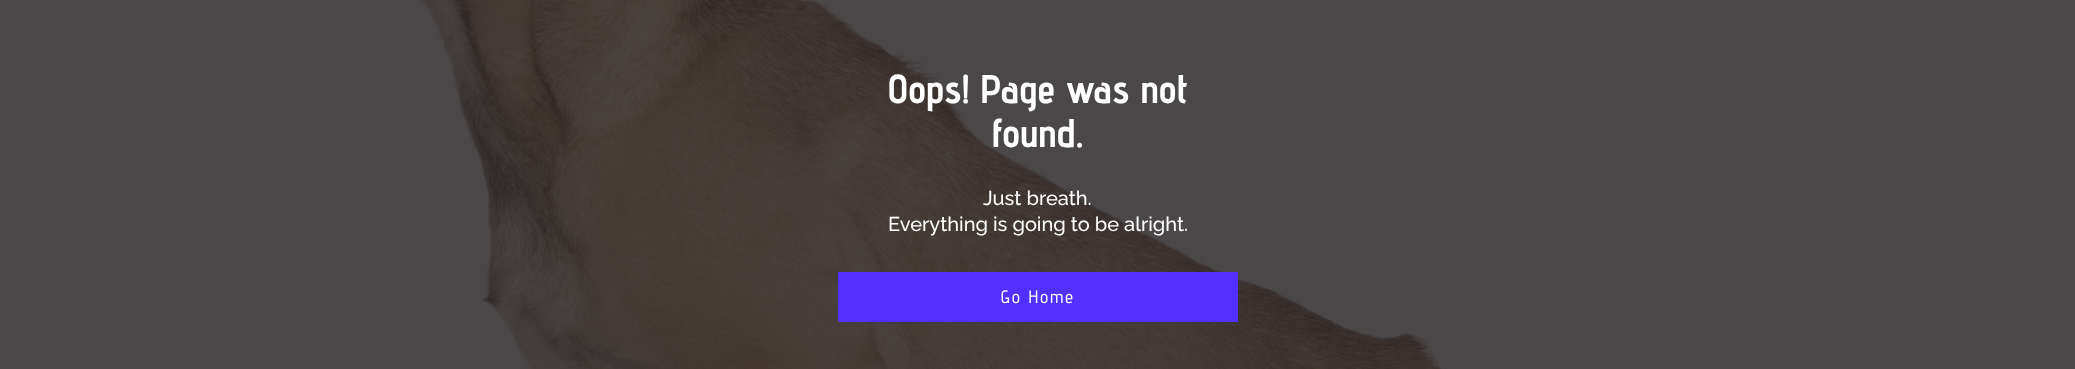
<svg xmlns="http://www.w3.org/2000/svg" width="2075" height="369">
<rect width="100%" height="100%" fill="#fff"/>
<image x="0" y="0" width="2075" height="369" href="media/1.png"/>
<text x="888" y="103" style="font-family:Advent Pro;font-size:40px;font-weight:bold;fill:#fff">Oops! Page was not</text>
<text x="992" y="147" style="font-family:Advent Pro;font-size:40px;font-weight:bold;fill:#fff">found.</text>
<text x="983" y="205" style="font-family:Raleway;font-size:20px;font-weight:500;fill:#fff">Just breath.</text>
<text x="888" y="231" style="font-family:Raleway;font-size:20px;font-weight:500;fill:#fff">Everything is going to be alright.</text>
<rect x="838" y="272" width="400" height="50" fill="#5330ff"/>
<text x="1001" y="303" style="font-family:Advent Pro;font-size:18px;font-weight:500;letter-spacing:2px;fill:#fff">Go Home</text>
</svg>
